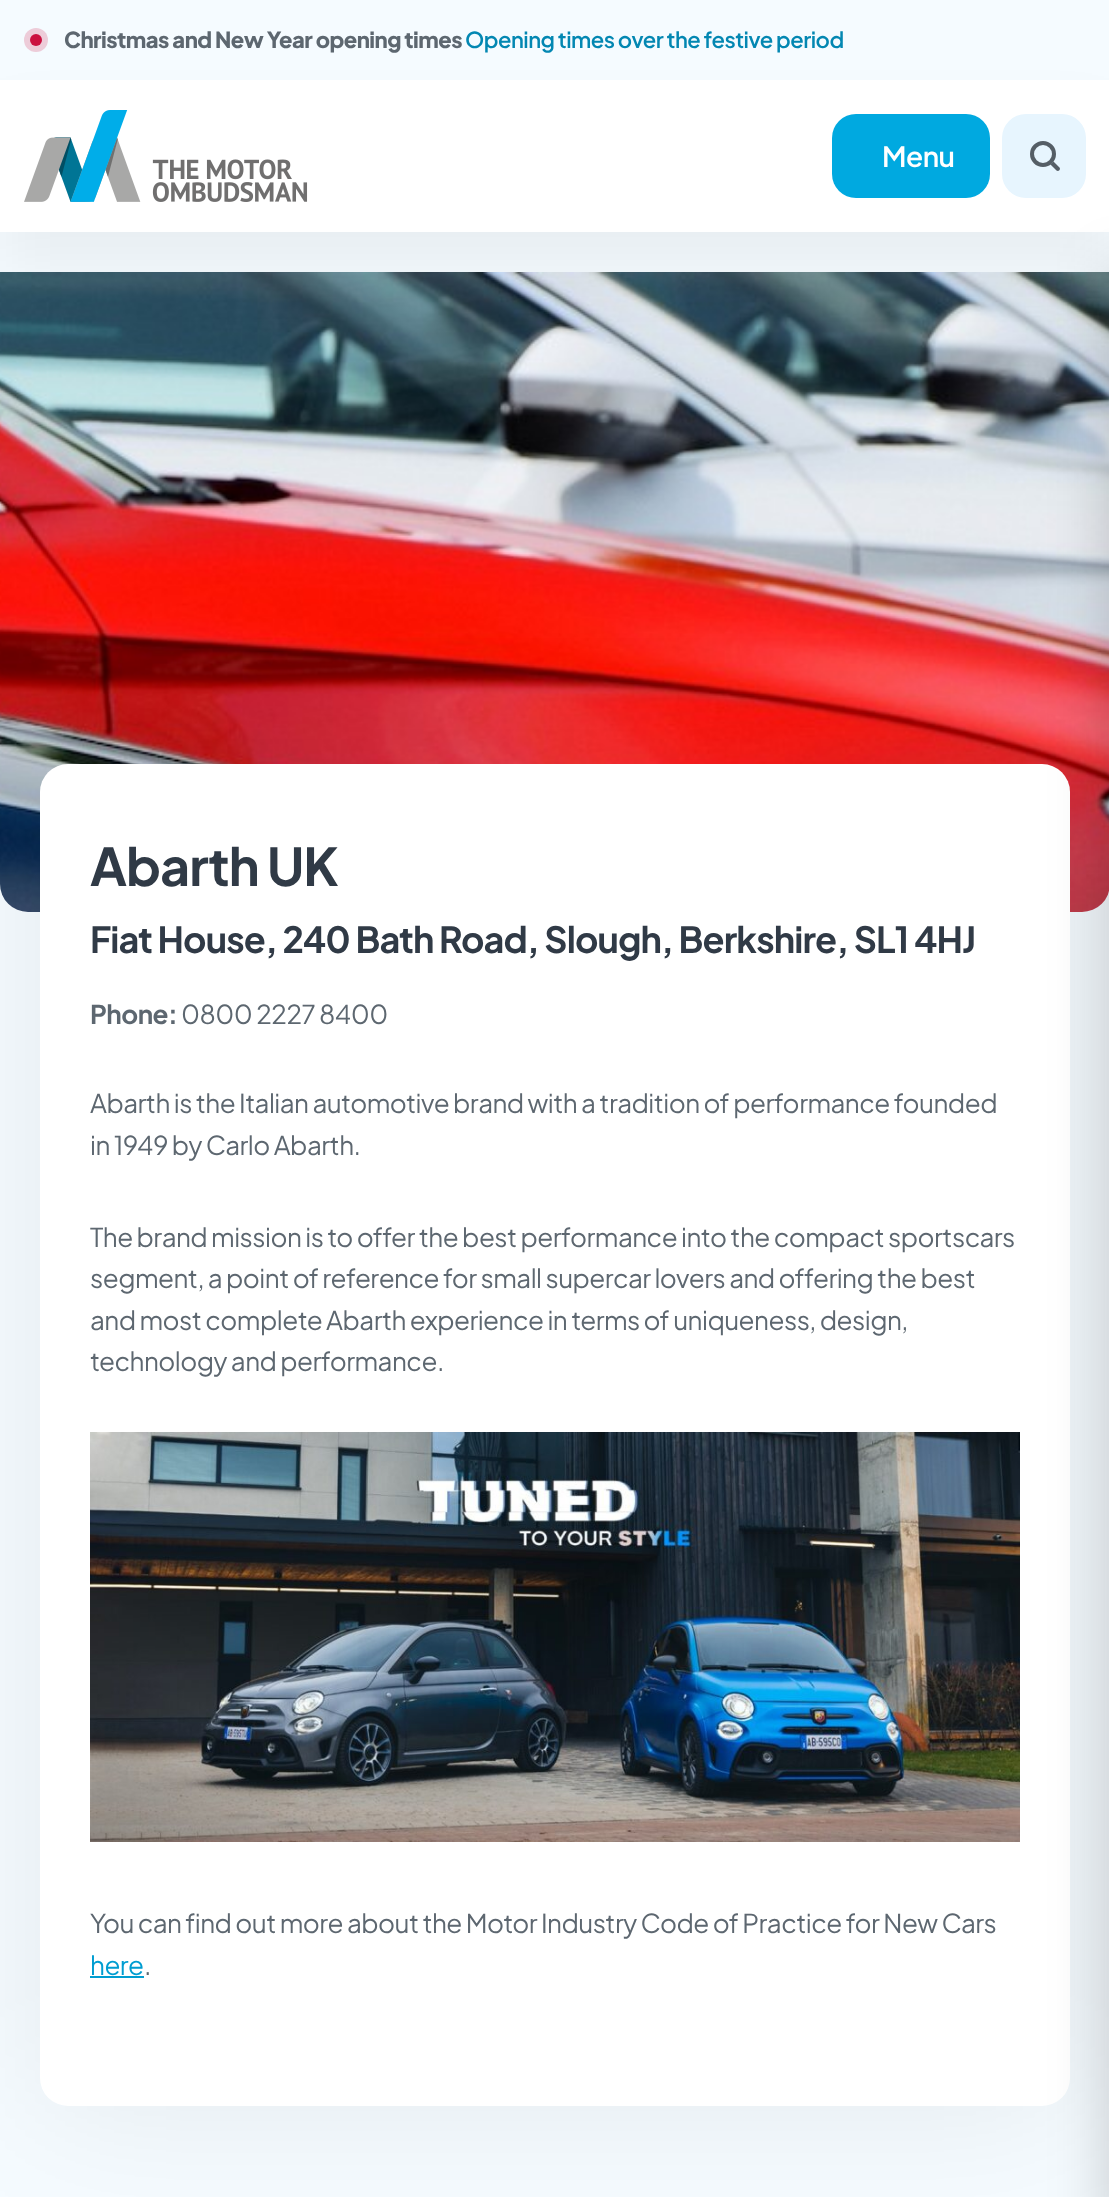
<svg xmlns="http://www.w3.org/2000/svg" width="1109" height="2197">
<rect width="100%" height="100%" fill="#f5fbff"/>
<circle cx="36" cy="40" r="12" fill="#edccd9"/>
<circle cx="36" cy="40" r="6" fill="#cb1140"/>
<text x="64" y="48" style="font-family:Plus Jakarta Sans;font-size:22px;font-weight:800;letter-spacing:-0.52px;fill:#5d6770">Christmas and New Year opening times</text>
<text x="465" y="48" style="font-family:Plus Jakarta Sans;font-size:22px;font-weight:600;letter-spacing:-0.52px;fill:#0387b2">Opening times over the festive period</text>
<image x="0" y="272" width="1109" height="640" href="media/2.png"/>
<rect y="120" width="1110" height="152" fill="#0000000d" filter="blur(30px)"/>
<rect y="80" width="1109" height="152" fill="#fff"/>
<image x="24" y="110" width="284" height="92" href="media/1.png"/>
<rect x="832" y="114" width="158" height="84" rx="24" fill="#00a9e0"/>
<text x="882" y="167" style="font-family:Plus Jakarta Sans;font-size:28px;font-weight:600;letter-spacing:-0.5px;fill:#fff">Menu</text>
<rect x="1002" y="114" width="84" height="84" rx="24" fill="#e7f5fe"/>
<circle cx="1043" cy="154" r="11" fill="none" stroke="#555e66" stroke-width="4"/>
<path d="M1056.5 170.5c2 1.5 4.5-1 3-3zm-6-6l6 6l3-3l-6-6z" fill="#555e66"/>
<rect x="40" y="764" width="1030" height="1342" rx="28" fill="#00000012" filter="blur(70px)"/>
<rect x="40" y="764" width="1030" height="1342" rx="28" fill="#fff"/>
<image x="90" y="1432" width="930" height="410" href="media/3.png"/>
<rect x="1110" y="272" width="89" height="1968" fill="#00000033" filter="blur(30px)"/>
<text x="90" y="886" style="font-family:Plus Jakarta Sans;font-size:52px;font-weight:bold;letter-spacing:-1px;fill:#303a46">Abarth UK</text>
<text x="90" y="953" style="font-family:Plus Jakarta Sans;font-size:36px;font-weight:bold;letter-spacing:-0.88px;fill:#303a46">Fiat House, 240 Bath Road, Slough, Berkshire, SL1 4HJ</text>
<text x="90" y="1024" style="font-family:Plus Jakarta Sans;font-size:26px;font-weight:bold;letter-spacing:-0.52px;fill:#5d6770">Phone:</text>
<text x="181" y="1024" style="font-family:Plus Jakarta Sans;font-size:26px;letter-spacing:-0.52px;fill:#5d6770">0800 2227 8400</text>
<text x="90" y="1113" style="font-family:Plus Jakarta Sans;font-size:26px;letter-spacing:-0.52px;fill:#5d6770">Abarth is the Italian automotive brand with a tradition of performance founded</text>
<text x="90" y="1155" style="font-family:Plus Jakarta Sans;font-size:26px;letter-spacing:-0.52px;fill:#5d6770">in 1949 by Carlo Abarth.</text>
<text x="90" y="1247" style="font-family:Plus Jakarta Sans;font-size:26px;letter-spacing:-0.52px;fill:#5d6770">The brand mission is to offer the best performance into the compact sportscars</text>
<text x="90" y="1288" style="font-family:Plus Jakarta Sans;font-size:26px;letter-spacing:-0.52px;fill:#5d6770">segment, a point of reference for small supercar lovers and offering the best</text>
<text x="90" y="1330" style="font-family:Plus Jakarta Sans;font-size:26px;letter-spacing:-0.52px;fill:#5d6770">and most complete Abarth experience in terms of uniqueness, design,</text>
<text x="90" y="1371" style="font-family:Plus Jakarta Sans;font-size:26px;letter-spacing:-0.52px;fill:#5d6770">technology and performance.</text>
<text x="90" y="1933" style="font-family:Plus Jakarta Sans;font-size:26px;letter-spacing:-0.52px;fill:#5d6770">You can find out more about the Motor Industry Code of Practice for New Cars</text>
<text x="90" y="1975" style="font-family:Plus Jakarta Sans;font-size:26px;letter-spacing:-0.52px;fill:#009dd1">here</text>
<rect x="90" y="1976" width="54" height="2" fill="#009dd1"/>
<text x="144" y="1975" style="font-family:Plus Jakarta Sans;font-size:26px;letter-spacing:-0.52px;fill:#5d6770">.</text>
</svg>
